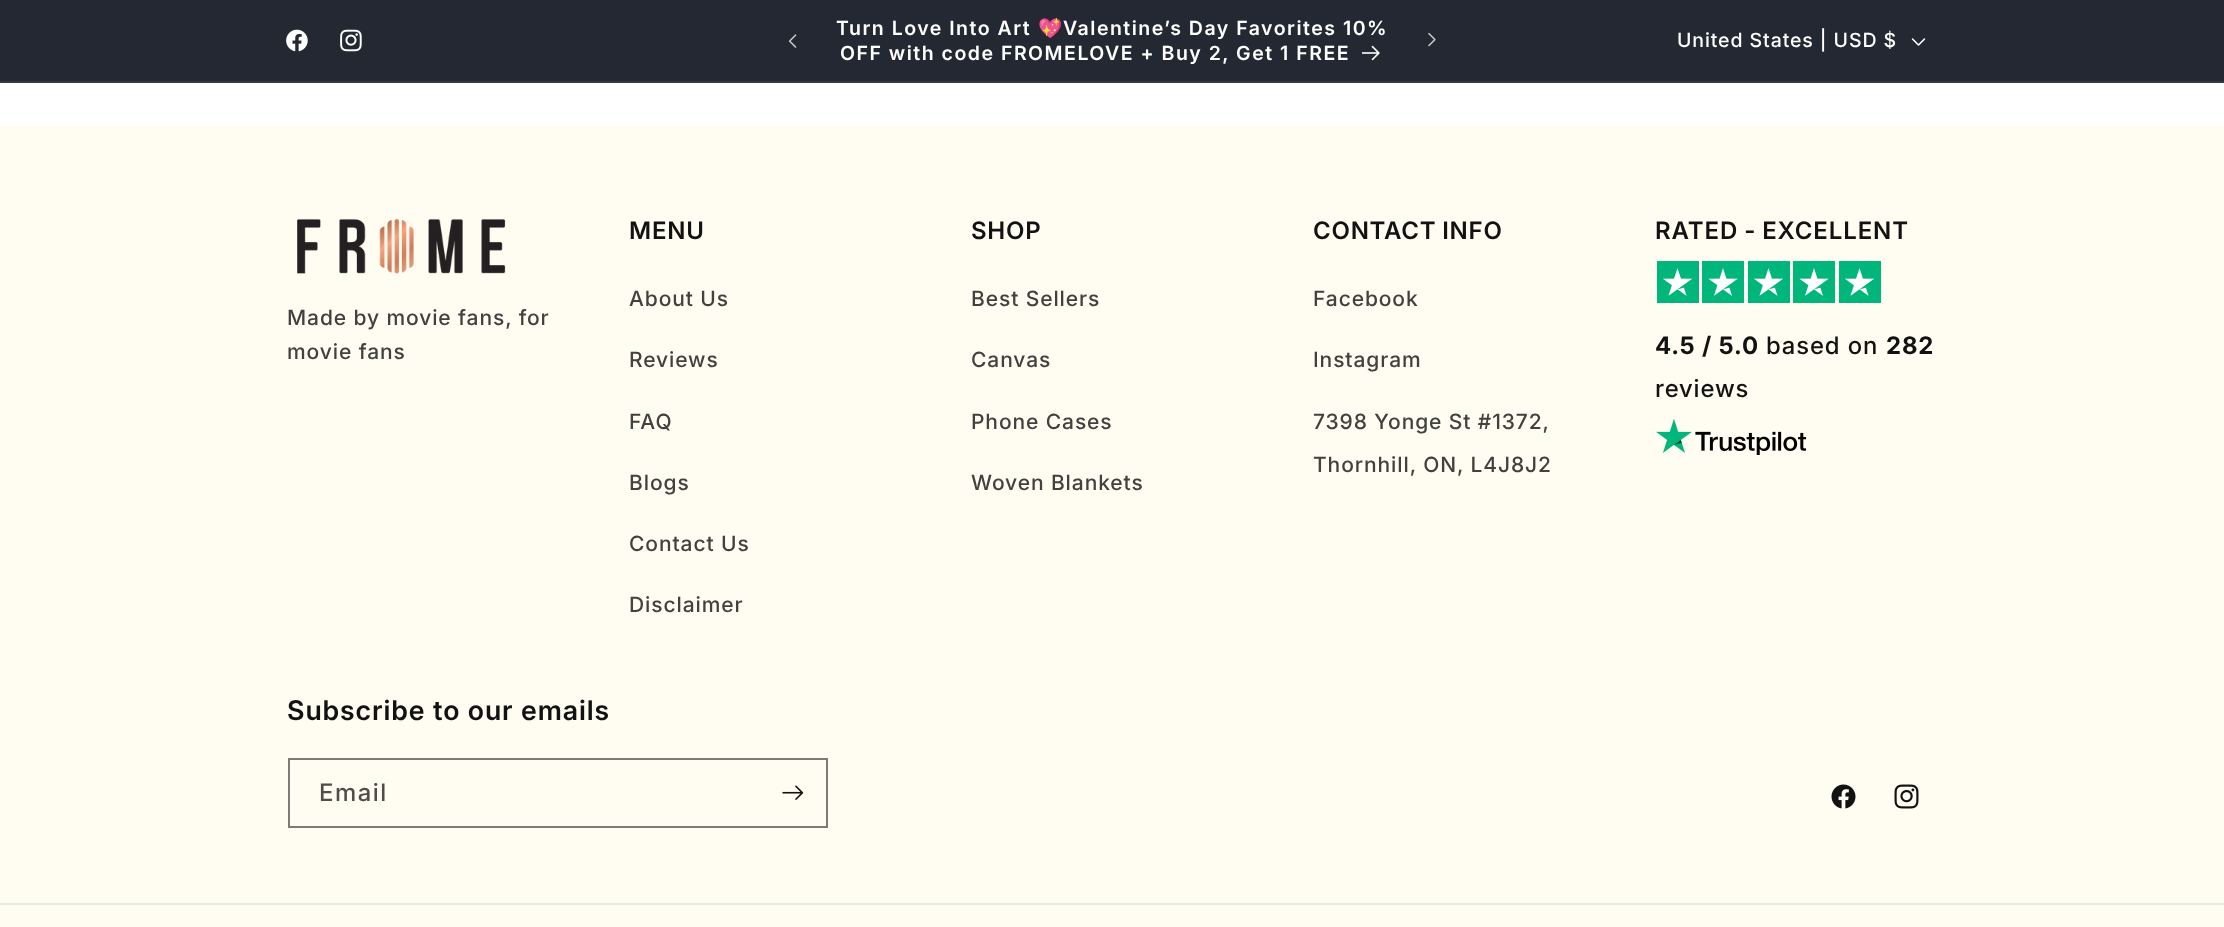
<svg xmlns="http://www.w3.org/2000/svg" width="2224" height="927">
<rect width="100%" height="100%" fill="#fff"/>
<rect width="2224" height="81" fill="#242833"/>
<rect y="81" width="2224" height="2" fill="#363943"/>
<image x="286" y="29" width="22" height="23" href="media/1.png"/>
<image x="340" y="29" width="22" height="23" href="media/2.png"/>
<image x="788" y="34" width="9" height="14" href="media/3.png"/>
<text x="836" y="35" style="font-family:Inter;font-size:19.5px;font-weight:600;letter-spacing:1.5px;fill:#fff">Turn Love Into Art</text>
<text x="1038" y="35" style="font-family:Noto Color Emoji;font-size:19.5px;font-weight:bold;letter-spacing:1.5px;fill:#fff">💖</text>
<text x="1063" y="35" style="font-family:Inter;font-size:19.5px;font-weight:600;letter-spacing:1.5px;fill:#fff">Valentine’s Day Favorites 10%</text>
<text x="840" y="60" style="font-family:Inter;font-size:19.5px;font-weight:600;letter-spacing:1.5px;fill:#fff">OFF with code FROMELOVE + Buy 2, Get 1 FREE</text>
<image x="1362" y="45" width="18" height="16" href="media/4.png"/>
<image x="1428" y="32" width="8" height="15" href="media/5.png"/>
<text x="1677" y="47" style="font-family:'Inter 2';font-size:19.5px;font-weight:500;letter-spacing:0.9px;fill:#fff">United States | USD $</text>
<image x="1911" y="38" width="15" height="8" href="media/6.png"/>
<rect y="125" width="2224" height="802" fill="#fffcf2"/>
<image x="297" y="218" width="209" height="56" href="media/7.png"/>
<text x="287" y="325" style="font-family:'Inter 2';font-size:21px;font-weight:500;letter-spacing:0.9px;fill:#41413f">Made by movie fans, for</text>
<text x="287" y="359" style="font-family:'Inter 2';font-size:21px;font-weight:500;letter-spacing:0.9px;fill:#41413f">movie fans</text>
<text x="629" y="239" style="font-family:Inter;font-size:24px;font-weight:600;letter-spacing:0.75px;fill:#121212">MENU</text>
<text x="629" y="306" style="font-family:'Inter 2';font-size:21px;font-weight:500;letter-spacing:0.9px;fill:#41413f">About Us</text>
<text x="629" y="367" style="font-family:'Inter 2';font-size:21px;font-weight:500;letter-spacing:0.9px;fill:#41413f">Reviews</text>
<text x="629" y="429" style="font-family:'Inter 2';font-size:21px;font-weight:500;letter-spacing:0.9px;fill:#41413f">FAQ</text>
<text x="629" y="490" style="font-family:'Inter 2';font-size:21px;font-weight:500;letter-spacing:0.9px;fill:#41413f">Blogs</text>
<text x="629" y="551" style="font-family:'Inter 2';font-size:21px;font-weight:500;letter-spacing:0.9px;fill:#41413f">Contact Us</text>
<text x="629" y="612" style="font-family:'Inter 2';font-size:21px;font-weight:500;letter-spacing:0.9px;fill:#41413f">Disclaimer</text>
<text x="971" y="239" style="font-family:Inter;font-size:24px;font-weight:600;letter-spacing:0.75px;fill:#121212">SHOP</text>
<text x="971" y="306" style="font-family:'Inter 2';font-size:21px;font-weight:500;letter-spacing:0.9px;fill:#41413f">Best Sellers</text>
<text x="971" y="367" style="font-family:'Inter 2';font-size:21px;font-weight:500;letter-spacing:0.9px;fill:#41413f">Canvas</text>
<text x="971" y="429" style="font-family:'Inter 2';font-size:21px;font-weight:500;letter-spacing:0.9px;fill:#41413f">Phone Cases</text>
<text x="971" y="490" style="font-family:'Inter 2';font-size:21px;font-weight:500;letter-spacing:0.9px;fill:#41413f">Woven Blankets</text>
<text x="1313" y="239" word-spacing="-1" style="font-family:Inter;font-size:24px;font-weight:600;letter-spacing:0.75px;fill:#121212">CONTACT INFO</text>
<text x="1313" y="306" style="font-family:'Inter 2';font-size:21px;font-weight:500;letter-spacing:0.9px;fill:#41413f">Facebook</text>
<text x="1313" y="367" style="font-family:'Inter 2';font-size:21px;font-weight:500;letter-spacing:0.9px;fill:#41413f">Instagram</text>
<text x="1313" y="429" style="font-family:'Inter 2';font-size:21px;font-weight:500;letter-spacing:0.9px;fill:#41413f">7398 Yonge St #1372,</text>
<text x="1313" y="472" style="font-family:'Inter 2';font-size:21px;font-weight:500;letter-spacing:0.9px;fill:#41413f">Thornhill, ON, L4J8J2</text>
<text x="1655" y="239" word-spacing="-1" style="font-family:Inter;font-size:24px;font-weight:600;letter-spacing:0.9px;fill:#121212">RATED - EXCELLENT</text>
<image x="1657" y="261" width="224" height="42" href="media/8.png"/>
<text x="1655" y="354" style="font-family:Inter;font-size:24px;font-weight:bold;letter-spacing:0.9px;fill:#121212">4.5 / 5.0</text>
<text x="1766" y="354" style="font-family:Inter;font-size:24px;font-weight:500;letter-spacing:0.9px;fill:#121212">based on</text>
<text x="1886" y="354" style="font-family:Inter;font-size:24px;font-weight:bold;letter-spacing:0.9px;fill:#121212">282</text>
<text x="1655" y="397" style="font-family:Inter;font-size:24px;font-weight:500;letter-spacing:0.9px;fill:#121212">reviews</text>
<image x="1656" y="419" width="150" height="36" href="media/9.png"/>
<text x="287" y="720" style="font-family:'Inter 2';font-size:27px;font-weight:600;letter-spacing:0.9px;fill:#121212">Subscribe to our emails</text>
<rect x="289" y="759" width="538" height="68" fill="none" stroke="#7d7b77" stroke-width="2"/>
<text x="319" y="801" style="font-family:Inter;font-size:24px;font-weight:500;letter-spacing:1.5px;fill:#4d4d4a">Email</text>
<image x="782" y="785" width="22" height="15" href="media/10.png"/>
<image x="1831" y="784" width="25" height="25" href="media/11.png"/>
<image x="1894" y="784" width="25" height="25" href="media/12.png"/>
<rect y="903" width="2224" height="2" fill="#ece9e0"/>
</svg>
